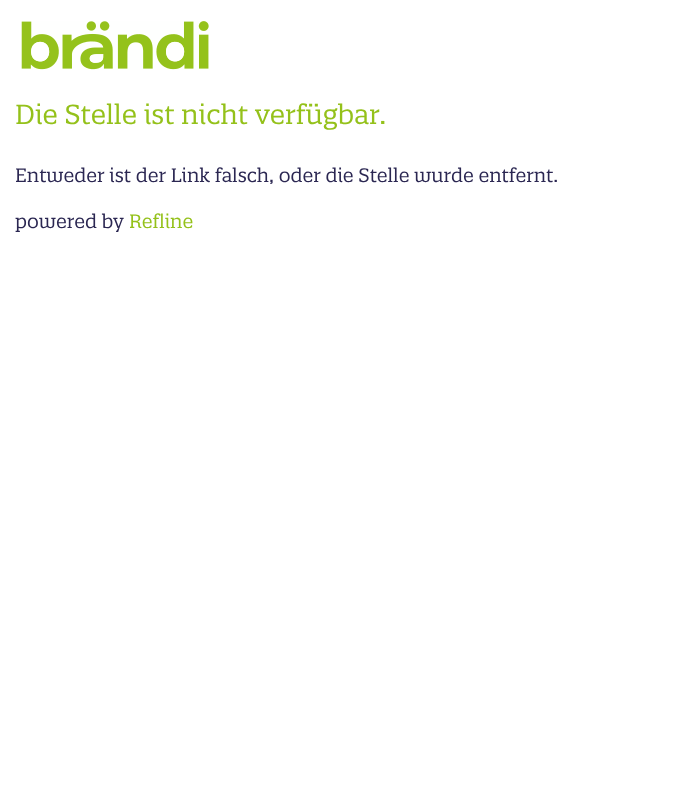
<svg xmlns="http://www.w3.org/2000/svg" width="689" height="803">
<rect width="100%" height="100%" fill="#fff"/>
<image x="21" y="21" width="188" height="49" href="media/1.png"/>
<text x="15" y="124" style="font-family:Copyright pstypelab;font-size:26.8px;fill:#94c11a">Die Stelle ist nicht verfügbar.</text>
<text x="15" y="182" style="font-family:Copyright pstypelab;font-size:18.9px;fill:#2b2752">Entweder ist der Link falsch, oder die Stelle wurde entfernt.</text>
<text x="15" y="228" style="font-family:Copyright pstypelab;font-size:18.9px;fill:#2b2752">powered by</text>
<text x="129" y="228" style="font-family:Copyright pstypelab;font-size:18.9px;fill:#94c11a">Refline</text>
</svg>
